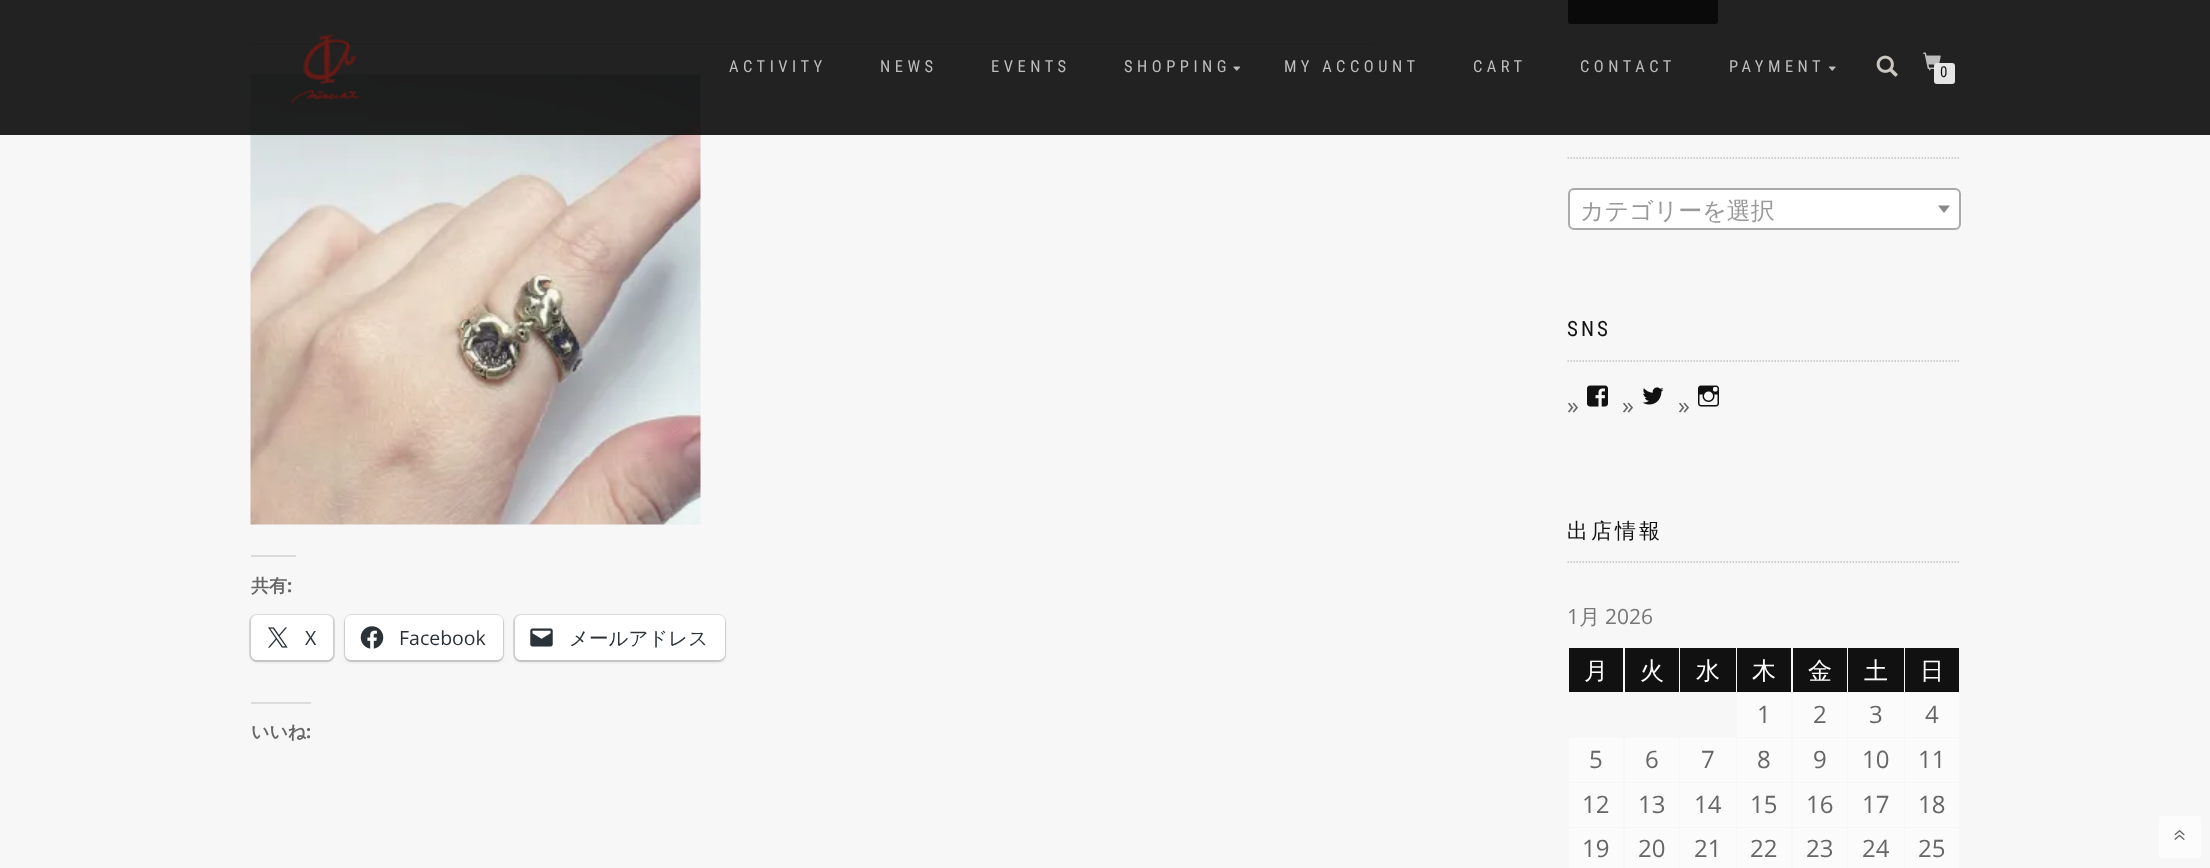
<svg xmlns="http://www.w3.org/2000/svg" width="2210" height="868">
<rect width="100%" height="100%" fill="#f7f7f7"/>
<path d="M250.5 44h1125" fill="none" stroke="#c2c2c2" stroke-width="1.5" stroke-dasharray="1.5 1.5"/>
<image x="250" y="74" width="451" height="451" href="media/6.png"/>
<rect x="1568" y="-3" width="150" height="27" rx="3" fill="#111"/>
<rect width="2210" height="135" fill="#0a0a0ae6"/>
<image x="291" y="34" width="69" height="70" href="media/1.png"/>
<text x="729" y="72" style="font-family:Roboto Condensed;font-size:16.5px;letter-spacing:4.5px;fill:#bdbdbd">ACTIVITY</text>
<text x="880" y="72" style="font-family:Roboto Condensed;font-size:16.5px;letter-spacing:4.5px;fill:#bdbdbd">NEWS</text>
<text x="991" y="72" style="font-family:Roboto Condensed;font-size:16.5px;letter-spacing:4.5px;fill:#bdbdbd">EVENTS</text>
<text x="1124" y="72" style="font-family:Roboto Condensed;font-size:16.5px;letter-spacing:4.5px;fill:#bdbdbd">SHOPPING</text>
<image x="1233" y="66" width="7" height="5" href="media/2.png"/>
<text x="1284" y="72" style="font-family:Roboto Condensed;font-size:16.5px;letter-spacing:4.5px;fill:#bdbdbd">MY ACCOUNT</text>
<text x="1473" y="72" style="font-family:Roboto Condensed;font-size:16.5px;letter-spacing:4.5px;fill:#bdbdbd">CART</text>
<text x="1580" y="72" style="font-family:Roboto Condensed;font-size:16.5px;letter-spacing:4.5px;fill:#bdbdbd">CONTACT</text>
<text x="1729" y="72" style="font-family:Roboto Condensed;font-size:16.5px;letter-spacing:4.5px;fill:#bdbdbd">PAYMENT</text>
<image x="1828" y="66" width="8" height="5" href="media/3.png"/>
<image x="1876" y="55" width="22" height="22" href="media/4.png"/>
<image x="1923" y="52" width="18" height="19" href="media/5.png"/>
<rect x="1934" y="63" width="21" height="21" rx="3" fill="#e5e5e5"/>
<text x="1940" y="77" style="font-family:Roboto Condensed;font-size:15px;fill:#111">0</text>
<rect x="251" y="555" width="45" height="2" fill="#dcdcde"/>
<text x="251" y="592" style="font-family:WenQuanYi Zen Hei;font-size:18px;font-weight:bold;fill:#666">共有</text>
<text x="287" y="592" style="font-family:Open Sans;font-size:18px;font-weight:bold;fill:#666">:</text>
<rect x="250" y="615" width="84" height="46" rx="7" fill="none" stroke="#d9d9d9" stroke-width="2"/>
<rect x="251" y="617" width="82" height="45" rx="6" fill="#0000001f" filter="blur(1.5px)"/>
<rect x="251" y="615" width="82" height="45" rx="6" fill="#fff"/>
<image x="268" y="627" width="20" height="21" href="media/7.png"/>
<text x="305" y="645" style="font-family:Open Sans;font-size:19.5px;fill:#2c3338">X</text>
<rect x="345" y="615" width="158" height="46" rx="7" fill="none" stroke="#d9d9d9" stroke-width="2"/>
<rect x="345" y="617" width="158" height="45" rx="6" fill="#0000001f" filter="blur(1.5px)"/>
<rect x="345" y="615" width="158" height="45" rx="6" fill="#fff"/>
<image x="360" y="626" width="24" height="23" href="media/8.png"/>
<text x="399" y="645" style="font-family:Open Sans;font-size:19.5px;fill:#2c3338">Facebook</text>
<rect x="514" y="615" width="211" height="46" rx="7" fill="none" stroke="#d9d9d9" stroke-width="2"/>
<rect x="515" y="617" width="210" height="45" rx="6" fill="#0000001f" filter="blur(1.5px)"/>
<rect x="515" y="615" width="210" height="45" rx="6" fill="#fff"/>
<image x="530" y="628" width="23" height="19" href="media/9.png"/>
<text x="569" y="645" style="font-family:WenQuanYi Zen Hei;font-size:19.5px;font-weight:500;fill:#2c3338">メールアドレス</text>
<rect x="251" y="702" width="60" height="2" fill="#dcdcde"/>
<text x="251" y="738" style="font-family:WenQuanYi Zen Hei;font-size:18px;font-weight:bold;fill:#666">いいね</text>
<text x="306" y="738" style="font-family:Open Sans;font-size:18px;font-weight:bold;fill:#666">:</text>
<path d="M1567.5 158h393" fill="none" stroke="#c2c2c2" stroke-width="1.5" stroke-dasharray="1.5 1.5"/>
<rect x="1569" y="189" width="391" height="40" rx="5" fill="#fff" stroke="#aaa" stroke-width="2"/>
<text x="1580" y="219" style="font-family:WenQuanYi Zen Hei;font-size:24px;font-weight:500;fill:#999">カテゴリーを選択</text>
<path d="M1938 205.5h12l-6 7.5z" fill="#888"/>
<path d="M1567.5 361h393" fill="none" stroke="#c2c2c2" stroke-width="1.5" stroke-dasharray="1.5 1.5"/>
<text x="1567" y="336" style="font-family:Roboto Condensed;font-size:21px;letter-spacing:3px;fill:#111">SNS</text>
<text x="1567" y="414" style="font-family:Open Sans;font-size:24px;fill:#666">»</text>
<image x="1587" y="385" width="21" height="22" href="media/10.png"/>
<image x="1642" y="387" width="22" height="18" href="media/11.png"/>
<text x="1622" y="414" style="font-family:Open Sans;font-size:24px;fill:#666">»</text>
<text x="1678" y="414" style="font-family:Open Sans;font-size:24px;fill:#666">»</text>
<image x="1698" y="385" width="21" height="22" href="media/12.png"/>
<path d="M1567.5 562h393" fill="none" stroke="#c2c2c2" stroke-width="1.5" stroke-dasharray="1.5 1.5"/>
<text x="1567" y="538" style="font-family:WenQuanYi Zen Hei;font-size:21px;font-weight:500;letter-spacing:3px;fill:#111">出店情報</text>
<text x="1567" y="624" style="font-family:Open Sans;font-size:21px;fill:#777">1</text>
<text x="1579" y="624" style="font-family:WenQuanYi Zen Hei;font-size:21px;font-weight:500;fill:#777">月</text>
<text x="1605" y="624" style="font-family:Open Sans;font-size:21px;fill:#777">2026</text>
<rect x="1569" y="648" width="54" height="44" fill="#111"/>
<text x="1584" y="679" style="font-family:WenQuanYi Zen Hei;font-size:24px;font-weight:500;fill:#fff">月</text>
<rect x="1625" y="648" width="54" height="44" fill="#111"/>
<text x="1640" y="679" style="font-family:WenQuanYi Zen Hei;font-size:24px;font-weight:500;fill:#fff">火</text>
<rect x="1680" y="648" width="56" height="44" fill="#111"/>
<text x="1696" y="679" style="font-family:WenQuanYi Zen Hei;font-size:24px;font-weight:500;fill:#fff">水</text>
<rect x="1737" y="648" width="54" height="44" fill="#111"/>
<text x="1752" y="679" style="font-family:WenQuanYi Zen Hei;font-size:24px;font-weight:500;fill:#fff">木</text>
<rect x="1793" y="648" width="54" height="44" fill="#111"/>
<text x="1808" y="679" style="font-family:WenQuanYi Zen Hei;font-size:24px;font-weight:500;fill:#fff">金</text>
<rect x="1848" y="648" width="56" height="44" fill="#111"/>
<text x="1864" y="679" style="font-family:WenQuanYi Zen Hei;font-size:24px;font-weight:500;fill:#fff">土</text>
<rect x="1905" y="648" width="54" height="44" fill="#111"/>
<text x="1920" y="679" style="font-family:WenQuanYi Zen Hei;font-size:24px;font-weight:500;fill:#fff">日</text>
<rect x="1737" y="693" width="54" height="44" fill="#fbfbfb"/>
<text x="1757" y="723" style="font-family:Open Sans;font-size:24px;fill:#666">1</text>
<rect x="1793" y="693" width="54" height="44" fill="#fbfbfb"/>
<text x="1813" y="723" style="font-family:Open Sans;font-size:24px;fill:#666">2</text>
<rect x="1848" y="693" width="56" height="44" fill="#fbfbfb"/>
<text x="1869" y="723" style="font-family:Open Sans;font-size:24px;fill:#666">3</text>
<rect x="1905" y="693" width="54" height="44" fill="#fbfbfb"/>
<text x="1925" y="723" style="font-family:Open Sans;font-size:24px;fill:#666">4</text>
<rect x="1569" y="738" width="54" height="44" fill="#fbfbfb"/>
<text x="1589" y="768" style="font-family:Open Sans;font-size:24px;fill:#666">5</text>
<rect x="1625" y="738" width="54" height="44" fill="#fbfbfb"/>
<text x="1645" y="768" style="font-family:Open Sans;font-size:24px;fill:#666">6</text>
<rect x="1680" y="738" width="56" height="44" fill="#fbfbfb"/>
<text x="1701" y="768" style="font-family:Open Sans;font-size:24px;fill:#666">7</text>
<rect x="1737" y="738" width="54" height="44" fill="#fbfbfb"/>
<text x="1757" y="768" style="font-family:Open Sans;font-size:24px;fill:#666">8</text>
<rect x="1793" y="738" width="54" height="44" fill="#fbfbfb"/>
<text x="1813" y="768" style="font-family:Open Sans;font-size:24px;fill:#666">9</text>
<rect x="1848" y="738" width="56" height="44" fill="#fbfbfb"/>
<text x="1862" y="768" style="font-family:Open Sans;font-size:24px;fill:#666">10</text>
<rect x="1905" y="738" width="54" height="44" fill="#fbfbfb"/>
<text x="1918" y="768" style="font-family:Open Sans;font-size:24px;fill:#666">11</text>
<rect x="1569" y="783" width="54" height="44" fill="#fbfbfb"/>
<text x="1582" y="813" style="font-family:Open Sans;font-size:24px;fill:#666">12</text>
<rect x="1625" y="783" width="54" height="44" fill="#fbfbfb"/>
<text x="1638" y="813" style="font-family:Open Sans;font-size:24px;fill:#666">13</text>
<rect x="1680" y="783" width="56" height="44" fill="#fbfbfb"/>
<text x="1694" y="813" style="font-family:Open Sans;font-size:24px;fill:#666">14</text>
<rect x="1737" y="783" width="54" height="44" fill="#fbfbfb"/>
<text x="1750" y="813" style="font-family:Open Sans;font-size:24px;fill:#666">15</text>
<rect x="1793" y="783" width="54" height="44" fill="#fbfbfb"/>
<text x="1806" y="813" style="font-family:Open Sans;font-size:24px;fill:#666">16</text>
<rect x="1848" y="783" width="56" height="44" fill="#fbfbfb"/>
<text x="1862" y="813" style="font-family:Open Sans;font-size:24px;fill:#666">17</text>
<rect x="1905" y="783" width="54" height="44" fill="#fbfbfb"/>
<text x="1918" y="813" style="font-family:Open Sans;font-size:24px;fill:#666">18</text>
<rect x="1569" y="828" width="54" height="40" fill="#fbfbfb"/>
<text x="1582" y="857" style="font-family:Open Sans;font-size:24px;fill:#666">19</text>
<rect x="1625" y="828" width="54" height="40" fill="#fbfbfb"/>
<text x="1638" y="857" style="font-family:Open Sans;font-size:24px;fill:#666">20</text>
<rect x="1680" y="828" width="56" height="40" fill="#fbfbfb"/>
<text x="1694" y="857" style="font-family:Open Sans;font-size:24px;fill:#666">21</text>
<rect x="1737" y="828" width="54" height="40" fill="#fbfbfb"/>
<text x="1750" y="857" style="font-family:Open Sans;font-size:24px;fill:#666">22</text>
<rect x="1793" y="828" width="54" height="40" fill="#fbfbfb"/>
<text x="1806" y="857" style="font-family:Open Sans;font-size:24px;fill:#666">23</text>
<rect x="1848" y="828" width="56" height="40" fill="#fbfbfb"/>
<text x="1862" y="857" style="font-family:Open Sans;font-size:24px;fill:#666">24</text>
<rect x="1905" y="828" width="54" height="40" fill="#fbfbfb"/>
<text x="1918" y="857" style="font-family:Open Sans;font-size:24px;fill:#666">25</text>
<rect x="2159" y="816" width="42" height="42" rx="3" fill="#fcfcfc"/>
<image x="2174" y="830" width="11" height="10" href="media/13.png"/>
</svg>
